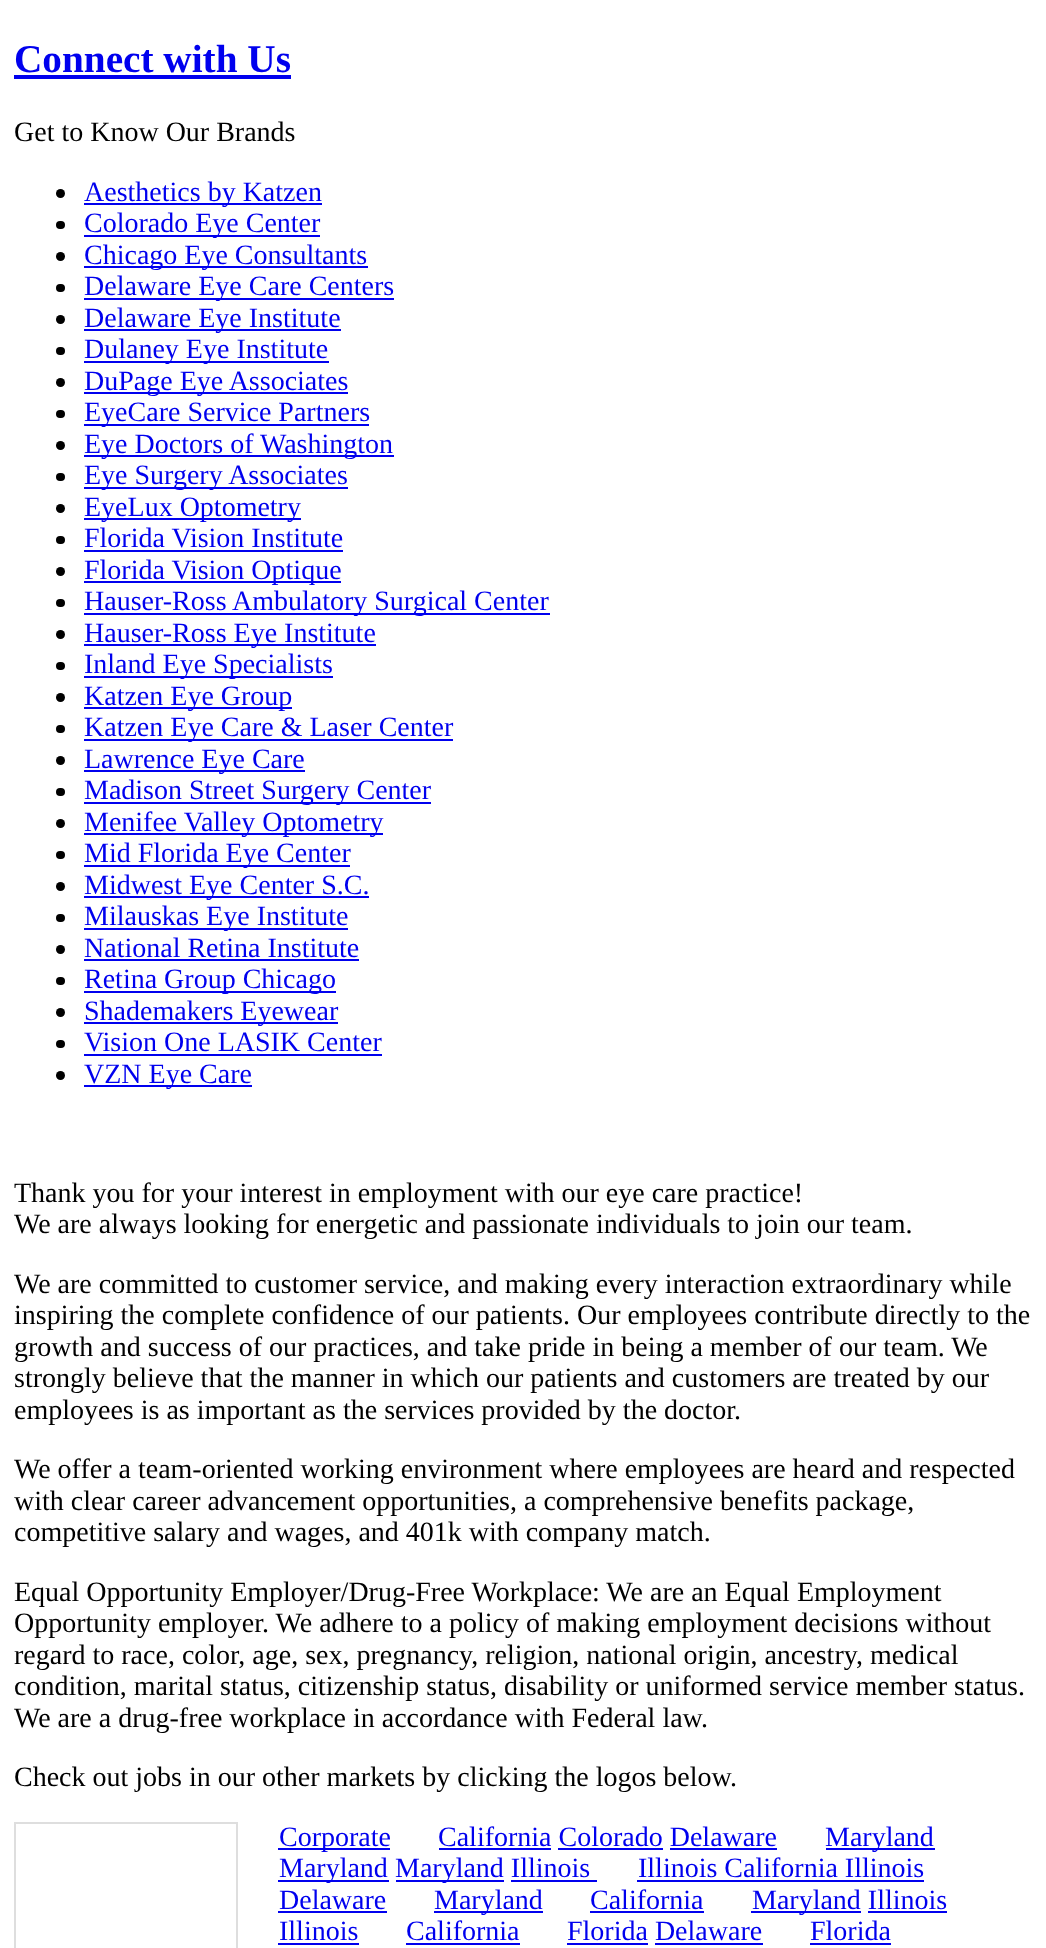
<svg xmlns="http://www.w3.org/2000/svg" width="1046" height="1948">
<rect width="100%" height="100%" fill="#fff"/>
<text x="14" y="72" style="font-family:Liberation Serif;font-size:39.25px;font-weight:bold;fill:#00e">Connect with Us</text>
<rect x="14" y="75" width="277" height="4" fill="#00e"/>
<text x="14" y="141" style="font-family:Liberation Serif;font-size:28px;fill:#000">Get to Know Our Brands</text>
<circle cx="60.5" cy="193.5" r="4.5" fill="#000"/>
<rect x="84" y="203" width="238" height="2" fill="#00e"/>
<text x="84" y="201" style="font-family:Liberation Serif;font-size:28px;fill:#00e">Aesthetics by Katzen</text>
<rect x="56" y="221" width="9" height="8" rx="4" fill="#000"/>
<rect x="84" y="235" width="236" height="2" fill="#00e"/>
<text x="84" y="232" style="font-family:Liberation Serif;font-size:28px;fill:#00e">Colorado Eye Center</text>
<circle cx="60.5" cy="256.5" r="4.5" fill="#000"/>
<rect x="84" y="266" width="284" height="2" fill="#00e"/>
<text x="84" y="264" style="font-family:Liberation Serif;font-size:28px;fill:#00e">Chicago Eye Consultants</text>
<rect x="56" y="284" width="9" height="8" rx="4" fill="#000"/>
<rect x="84" y="298" width="310" height="2" fill="#00e"/>
<text x="84" y="295" style="font-family:Liberation Serif;font-size:28px;fill:#00e">Delaware Eye Care Centers</text>
<circle cx="60.5" cy="319.5" r="4.5" fill="#000"/>
<rect x="84" y="329" width="257" height="2" fill="#00e"/>
<text x="84" y="327" style="font-family:Liberation Serif;font-size:28px;fill:#00e">Delaware Eye Institute</text>
<rect x="56" y="347" width="9" height="8" rx="4" fill="#000"/>
<rect x="84" y="361" width="245" height="2" fill="#00e"/>
<text x="84" y="358" style="font-family:Liberation Serif;font-size:28px;fill:#00e">Dulaney Eye Institute</text>
<circle cx="60.5" cy="382.5" r="4.5" fill="#000"/>
<rect x="84" y="392" width="264" height="2" fill="#00e"/>
<text x="84" y="390" style="font-family:Liberation Serif;font-size:28px;fill:#00e">DuPage Eye Associates</text>
<rect x="56" y="410" width="9" height="8" rx="4" fill="#000"/>
<rect x="84" y="424" width="285" height="2" fill="#00e"/>
<text x="84" y="421" style="font-family:Liberation Serif;font-size:28px;fill:#00e">EyeCare Service Partners</text>
<circle cx="60.5" cy="445.5" r="4.5" fill="#000"/>
<rect x="84" y="455" width="310" height="2" fill="#00e"/>
<text x="84" y="453" style="font-family:Liberation Serif;font-size:28px;fill:#00e">Eye Doctors of Washington</text>
<rect x="56" y="473" width="9" height="8" rx="4" fill="#000"/>
<rect x="84" y="487" width="264" height="2" fill="#00e"/>
<text x="84" y="484" style="font-family:Liberation Serif;font-size:28px;fill:#00e">Eye Surgery Associates</text>
<circle cx="60.5" cy="508.5" r="4.5" fill="#000"/>
<rect x="84" y="518" width="217" height="2" fill="#00e"/>
<text x="84" y="516" style="font-family:Liberation Serif;font-size:28px;fill:#00e">EyeLux Optometry</text>
<rect x="56" y="536" width="9" height="8" rx="4" fill="#000"/>
<text x="84" y="547" style="font-family:Liberation Serif;font-size:28px;fill:#00e">Florida Vision Institute</text>
<rect x="84" y="550" width="259" height="2" fill="#00e"/>
<circle cx="60.5" cy="571.5" r="4.5" fill="#000"/>
<rect x="84" y="581" width="257" height="2" fill="#00e"/>
<text x="84" y="579" style="font-family:Liberation Serif;font-size:28px;fill:#00e">Florida Vision Optique</text>
<rect x="56" y="599" width="9" height="8" rx="4" fill="#000"/>
<rect x="84" y="613" width="466" height="2" fill="#00e"/>
<text x="84" y="610" style="font-family:Liberation Serif;font-size:28px;fill:#00e">Hauser-Ross Ambulatory Surgical Center</text>
<circle cx="60.5" cy="634.5" r="4.5" fill="#000"/>
<rect x="84" y="644" width="292" height="2" fill="#00e"/>
<text x="84" y="642" style="font-family:Liberation Serif;font-size:28px;fill:#00e">Hauser-Ross Eye Institute</text>
<rect x="56" y="662" width="9" height="8" rx="4" fill="#000"/>
<rect x="84" y="676" width="249" height="2" fill="#00e"/>
<text x="84" y="673" style="font-family:Liberation Serif;font-size:28px;fill:#00e">Inland Eye Specialists</text>
<circle cx="60.5" cy="697.5" r="4.5" fill="#000"/>
<rect x="84" y="707" width="208" height="2" fill="#00e"/>
<text x="84" y="705" style="font-family:Liberation Serif;font-size:28px;fill:#00e">Katzen Eye Group</text>
<rect x="56" y="725" width="9" height="8" rx="4" fill="#000"/>
<rect x="84" y="739" width="369" height="2" fill="#00e"/>
<text x="84" y="736" style="font-family:Liberation Serif;font-size:28px;fill:#00e">Katzen Eye Care &amp; Laser Center</text>
<circle cx="60.5" cy="760.5" r="4.5" fill="#000"/>
<rect x="84" y="770" width="221" height="2" fill="#00e"/>
<text x="84" y="768" style="font-family:Liberation Serif;font-size:28px;fill:#00e">Lawrence Eye Care</text>
<rect x="56" y="788" width="9" height="8" rx="4" fill="#000"/>
<rect x="84" y="802" width="347" height="2" fill="#00e"/>
<text x="84" y="799" style="font-family:Liberation Serif;font-size:28px;fill:#00e">Madison Street Surgery Center</text>
<circle cx="60.5" cy="823.5" r="4.5" fill="#000"/>
<rect x="84" y="833" width="299" height="2" fill="#00e"/>
<text x="84" y="831" style="font-family:Liberation Serif;font-size:28px;fill:#00e">Menifee Valley Optometry</text>
<rect x="56" y="851" width="9" height="8" rx="4" fill="#000"/>
<rect x="84" y="865" width="266" height="2" fill="#00e"/>
<text x="84" y="862" style="font-family:Liberation Serif;font-size:28px;fill:#00e">Mid Florida Eye Center</text>
<circle cx="60.5" cy="886.5" r="4.5" fill="#000"/>
<rect x="84" y="896" width="285" height="2" fill="#00e"/>
<text x="84" y="894" style="font-family:Liberation Serif;font-size:28px;fill:#00e">Midwest Eye Center S.C.</text>
<rect x="56" y="914" width="9" height="8" rx="4" fill="#000"/>
<rect x="84" y="928" width="264" height="2" fill="#00e"/>
<text x="84" y="925" style="font-family:Liberation Serif;font-size:28px;fill:#00e">Milauskas Eye Institute</text>
<circle cx="60.5" cy="949.5" r="4.5" fill="#000"/>
<text x="84" y="957" style="font-family:Liberation Serif;font-size:28px;fill:#00e">National Retina Institute</text>
<rect x="84" y="959" width="275" height="2" fill="#00e"/>
<rect x="56" y="977" width="9" height="8" rx="4" fill="#000"/>
<rect x="84" y="991" width="252" height="2" fill="#00e"/>
<text x="84" y="988" style="font-family:Liberation Serif;font-size:28px;fill:#00e">Retina Group Chicago</text>
<circle cx="60.5" cy="1012.5" r="4.5" fill="#000"/>
<rect x="84" y="1022" width="254" height="2" fill="#00e"/>
<text x="84" y="1020" style="font-family:Liberation Serif;font-size:28px;fill:#00e">Shademakers Eyewear</text>
<rect x="56" y="1040" width="9" height="8" rx="4" fill="#000"/>
<text x="84" y="1051" style="font-family:Liberation Serif;font-size:28px;fill:#00e">Vision One LASIK Center</text>
<rect x="84" y="1054" width="298" height="2" fill="#00e"/>
<circle cx="60.5" cy="1075.5" r="4.5" fill="#000"/>
<rect x="84" y="1085" width="168" height="2" fill="#00e"/>
<text x="84" y="1083" style="font-family:Liberation Serif;font-size:28px;fill:#00e">VZN Eye Care</text>
<text x="14" y="1202" style="font-family:Liberation Serif;font-size:28px;fill:#000">Thank you for your interest in employment with our eye care practice!</text>
<text x="14" y="1233" style="font-family:Liberation Serif;font-size:28px;fill:#000">We are always looking for energetic and passionate individuals to join our team.</text>
<text x="14" y="1293" style="font-family:Liberation Serif;font-size:28px;fill:#000">We are committed to customer service, and making every interaction extraordinary while</text>
<text x="14" y="1324" style="font-family:Liberation Serif;font-size:28px;fill:#000">inspiring the complete confidence of our patients. Our employees contribute directly to the</text>
<text x="14" y="1356" style="font-family:Liberation Serif;font-size:28px;fill:#000">growth and success of our practices, and take pride in being a member of our team. We</text>
<text x="14" y="1387" style="font-family:Liberation Serif;font-size:28px;fill:#000">strongly believe that the manner in which our patients and customers are treated by our</text>
<text x="14" y="1419" style="font-family:Liberation Serif;font-size:28px;fill:#000">employees is as important as the services provided by the doctor.</text>
<text x="14" y="1478" style="font-family:Liberation Serif;font-size:28px;fill:#000">We offer a team-oriented working environment where employees are heard and respected</text>
<text x="14" y="1510" style="font-family:Liberation Serif;font-size:28px;fill:#000">with clear career advancement opportunities, a comprehensive benefits package,</text>
<text x="14" y="1541" style="font-family:Liberation Serif;font-size:28px;fill:#000">competitive salary and wages, and 401k with company match.</text>
<text x="14" y="1601" style="font-family:Liberation Serif;font-size:28px;fill:#000">Equal Opportunity Employer/Drug-Free Workplace: We are an Equal Employment</text>
<text x="14" y="1632" style="font-family:Liberation Serif;font-size:28px;fill:#000">Opportunity employer. We adhere to a policy of making employment decisions without</text>
<text x="14" y="1664" style="font-family:Liberation Serif;font-size:28px;fill:#000">regard to race, color, age, sex, pregnancy, religion, national origin, ancestry, medical</text>
<text x="14" y="1695" style="font-family:Liberation Serif;font-size:28px;fill:#000">condition, marital status, citizenship status, disability or uniformed service member status.</text>
<text x="14" y="1727" style="font-family:Liberation Serif;font-size:28px;fill:#000">We are a drug-free workplace in accordance with Federal law.</text>
<text x="14" y="1786" style="font-family:Liberation Serif;font-size:28px;fill:#000">Check out jobs in our other markets by clicking the logos below.</text>
<rect x="15" y="1823" width="222" height="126" fill="none" stroke="#dedede" stroke-width="2"/>
<rect x="278" y="1848" width="112" height="2" fill="#00e"/>
<text x="279" y="1846" style="font-family:Liberation Serif;font-size:28px;fill:#00e">Corporate</text>
<text x="438" y="1846" style="font-family:Liberation Serif;font-size:28px;fill:#00e">California Colorado Delaware</text>
<rect x="439" y="1848" width="112" height="2" fill="#00e"/>
<rect x="826" y="1848" width="109" height="2" fill="#00e"/>
<text x="825" y="1846" style="font-family:Liberation Serif;font-size:28px;fill:#00e">Maryland</text>
<rect x="558" y="1848" width="105" height="2" fill="#00e"/>
<rect x="670" y="1848" width="107" height="2" fill="#00e"/>
<rect x="278" y="1880" width="111" height="2" fill="#00e"/>
<text x="279" y="1877" style="font-family:Liberation Serif;font-size:28px;fill:#00e">Maryland</text>
<rect x="396" y="1880" width="108" height="2" fill="#00e"/>
<text x="395" y="1877" style="font-family:Liberation Serif;font-size:28px;fill:#00e">Maryland Illinois</text>
<text x="638" y="1877" style="font-family:Liberation Serif;font-size:28px;fill:#00e">Illinois California Illinois</text>
<rect x="637" y="1880" width="287" height="2" fill="#00e"/>
<rect x="511" y="1880" width="86" height="2" fill="#00e"/>
<text x="279" y="1909" style="font-family:Liberation Serif;font-size:28px;fill:#00e">Delaware</text>
<rect x="278" y="1911" width="109" height="2" fill="#00e"/>
<rect x="434" y="1911" width="109" height="2" fill="#00e"/>
<text x="434" y="1909" style="font-family:Liberation Serif;font-size:28px;fill:#00e">Maryland</text>
<text x="590" y="1909" style="font-family:Liberation Serif;font-size:28px;fill:#00e">California</text>
<rect x="590" y="1911" width="114" height="2" fill="#00e"/>
<rect x="751" y="1911" width="110" height="2" fill="#00e"/>
<text x="752" y="1909" style="font-family:Liberation Serif;font-size:28px;fill:#00e">Maryland Illinois</text>
<rect x="868" y="1911" width="79" height="2" fill="#00e"/>
<text x="279" y="1940" style="font-family:Liberation Serif;font-size:28px;fill:#00e">Illinois</text>
<rect x="278" y="1943" width="81" height="2" fill="#00e"/>
<text x="406" y="1940" style="font-family:Liberation Serif;font-size:28px;fill:#00e">California</text>
<rect x="406" y="1943" width="114" height="2" fill="#00e"/>
<text x="567" y="1940" style="font-family:Liberation Serif;font-size:28px;fill:#00e">Florida Delaware</text>
<rect x="567" y="1943" width="81" height="2" fill="#00e"/>
<text x="810" y="1940" style="font-family:Liberation Serif;font-size:28px;fill:#00e">Florida</text>
<rect x="810" y="1943" width="81" height="2" fill="#00e"/>
<rect x="655" y="1943" width="108" height="2" fill="#00e"/>
</svg>
